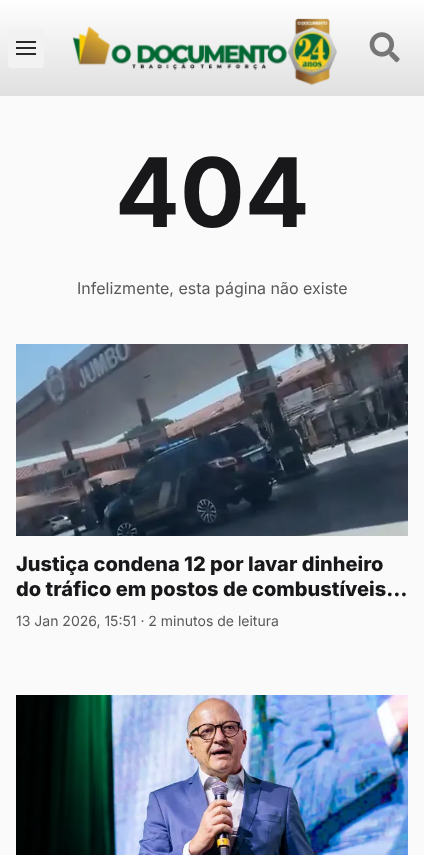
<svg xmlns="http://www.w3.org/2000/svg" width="424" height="855">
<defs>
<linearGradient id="g1" gradientUnits="userSpaceOnUse" x1="212" y1="0" x2="212" y2="96"><stop offset="0" stop-color="#fefefe"/><stop offset="1" stop-color="#e0e0e0"/></linearGradient>
</defs>
<rect width="100%" height="100%" fill="#fafafa"/>
<rect width="424" height="96" fill="url(#g1)"/>
<rect x="8" y="28" width="36" height="40" rx="4" fill="#f2f2f2"/>
<rect x="16" y="41" width="20" height="2" fill="#292929"/>
<rect x="16" y="47" width="20" height="2" fill="#292929"/>
<rect x="16" y="53" width="20" height="2" fill="#292929"/>
<image x="72" y="18" width="266" height="68" href="media/1.png"/>
<image x="369" y="32" width="31" height="31" href="media/2.png"/>
<text x="115" y="227" style="font-family:Inter;font-size:96px;font-weight:bold;fill:#18181b">404</text>
<text x="77" y="294" style="font-family:Inter;font-size:16px;fill:#595959">Infelizmente, esta página não existe</text>
<image x="16" y="344" width="392" height="192" href="media/3.png"/>
<text x="16" y="571" style="font-family:Inter;font-size:20px;font-weight:800;fill:#18181b">Justiça condena 12 por lavar dinheiro</text>
<text x="16" y="596" style="font-family:Inter;font-size:20px;font-weight:800;fill:#18181b">do tráfico em postos de combustíveis…</text>
<text x="16" y="626" style="font-family:Inter;font-size:14px;fill:#595959">13 Jan 2026, 15:51 · 2 minutos de leitura</text>
<image x="16" y="695" width="392" height="160" href="media/4.png"/>
</svg>
